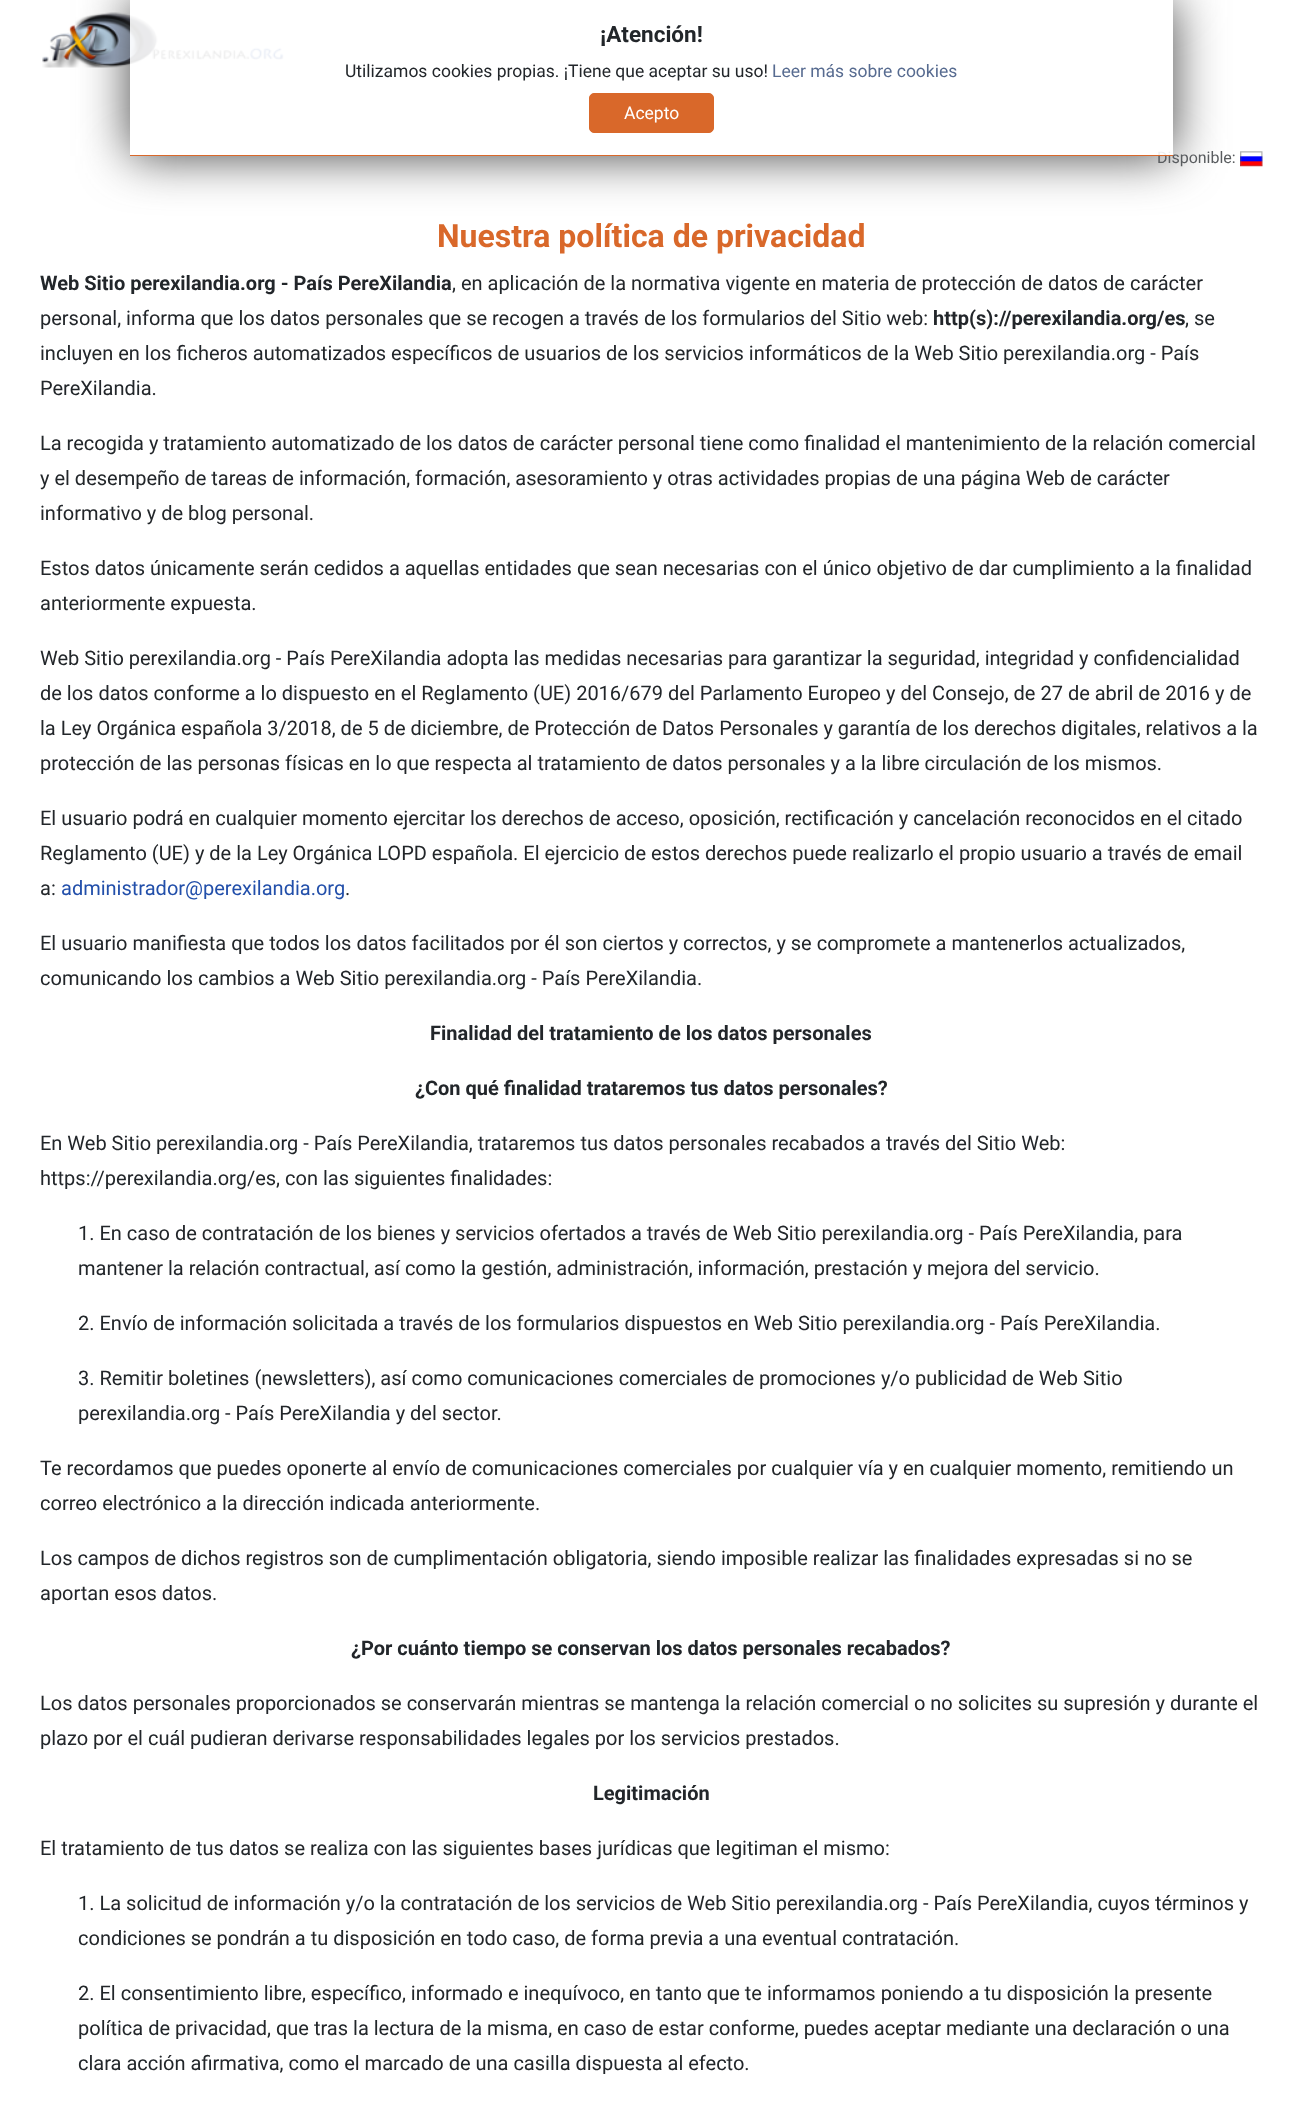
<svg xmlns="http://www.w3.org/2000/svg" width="1302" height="2107">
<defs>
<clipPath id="clip1"><path d="M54 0h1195v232h-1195zm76 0h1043v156h-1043z" clip-rule="evenodd"/></clipPath>
</defs>
<rect width="100%" height="100%" fill="#fff"/>
<image x="42" y="12" width="242" height="56" href="media/1.png"/>
<image x="1240" y="151" width="23" height="16" href="media/2.png"/>
<g clip-path="url(#clip1)">
<rect x="130" width="1043" height="156" fill="#444" filter="blur(25px)"/>
</g>
<text x="1157" y="163" style="font-family:Roboto;font-size:16px;fill:#595c5f">Disponible:</text>
<rect x="130" y="155" width="1043" height="1" fill="#d9682a"/>
<rect x="130" width="1043" height="155" fill="#ffffffe6"/>
<text x="600" y="42" style="font-family:Roboto;font-size:22.5px;font-weight:bold;fill:#22262a">¡Atención!</text>
<text x="345" y="77" style="font-family:Roboto;font-size:17.5px;fill:#22262a">Utilizamos cookies propias. ¡Tiene que aceptar su uso!</text>
<text x="772" y="77" style="font-family:Roboto;font-size:17.5px;fill:#576b90">Leer más sobre cookies</text>
<rect x="589.5" y="93.5" width="124" height="39" rx="4.5" fill="#d9682a" stroke="#d9682a"/>
<text x="624" y="119" style="font-family:Roboto;font-size:17.5px;fill:#fff">Acepto</text>
<text x="437" y="247" style="font-family:Roboto;font-size:32px;font-weight:bold;fill:#d9682a">Nuestra política de privacidad</text>
<text x="40" y="290" style="font-family:Roboto;font-size:20px;font-weight:bold;fill:#22262a">Web Sitio perexilandia.org - País PereXilandia</text>
<text x="452" y="290" style="font-family:Roboto;font-size:20px;fill:#22262a">, en aplicación de la normativa vigente en materia de protección de datos de carácter</text>
<text x="40" y="325" style="font-family:Roboto;font-size:20px;fill:#22262a">personal, informa que los datos personales que se recogen a través de los formularios del Sitio web:</text>
<text x="933" y="325" style="font-family:Roboto;font-size:20px;font-weight:bold;fill:#22262a">http(s)://perexilandia.org/es</text>
<text x="1185" y="325" style="font-family:Roboto;font-size:20px;fill:#22262a">, se</text>
<text x="40" y="360" style="font-family:Roboto;font-size:20px;fill:#22262a">incluyen en los ficheros automatizados específicos de usuarios de los servicios informáticos de la Web Sitio perexilandia.org - País</text>
<text x="40" y="395" style="font-family:Roboto;font-size:20px;fill:#22262a">PereXilandia.</text>
<text x="40" y="450" style="font-family:Roboto;font-size:20px;fill:#22262a">La recogida y tratamiento automatizado de los datos de carácter personal tiene como finalidad el mantenimiento de la relación comercial</text>
<text x="40" y="485" style="font-family:Roboto;font-size:20px;fill:#22262a">y el desempeño de tareas de información, formación, asesoramiento y otras actividades propias de una página Web de carácter</text>
<text x="40" y="520" style="font-family:Roboto;font-size:20px;fill:#22262a">informativo y de blog personal.</text>
<text x="40" y="575" style="font-family:Roboto;font-size:20px;fill:#22262a">Estos datos únicamente serán cedidos a aquellas entidades que sean necesarias con el único objetivo de dar cumplimiento a la finalidad</text>
<text x="40" y="610" style="font-family:Roboto;font-size:20px;fill:#22262a">anteriormente expuesta.</text>
<text x="40" y="665" style="font-family:Roboto;font-size:20px;fill:#22262a">Web Sitio perexilandia.org - País PereXilandia adopta las medidas necesarias para garantizar la seguridad, integridad y confidencialidad</text>
<text x="40" y="700" style="font-family:Roboto;font-size:20px;fill:#22262a">de los datos conforme a lo dispuesto en el Reglamento (UE) 2016/679 del Parlamento Europeo y del Consejo, de 27 de abril de 2016 y de</text>
<text x="40" y="735" style="font-family:Roboto;font-size:20px;fill:#22262a">la Ley Orgánica española 3/2018, de 5 de diciembre, de Protección de Datos Personales y garantía de los derechos digitales, relativos a la</text>
<text x="40" y="770" style="font-family:Roboto;font-size:20px;fill:#22262a">protección de las personas físicas en lo que respecta al tratamiento de datos personales y a la libre circulación de los mismos.</text>
<text x="40" y="825" style="font-family:Roboto;font-size:20px;fill:#22262a">El usuario podrá en cualquier momento ejercitar los derechos de acceso, oposición, rectificación y cancelación reconocidos en el citado</text>
<text x="40" y="860" style="font-family:Roboto;font-size:20px;fill:#22262a">Reglamento (UE) y de la Ley Orgánica LOPD española. El ejercicio de estos derechos puede realizarlo el propio usuario a través de email</text>
<text x="40" y="895" style="font-family:Roboto;font-size:20px;fill:#22262a">a:</text>
<text x="61" y="895" style="font-family:Roboto;font-size:20px;fill:#224faa">administrador@perexilandia.org</text>
<text x="345" y="895" style="font-family:Roboto;font-size:20px;fill:#22262a">.</text>
<text x="40" y="950" style="font-family:Roboto;font-size:20px;fill:#22262a">El usuario manifiesta que todos los datos facilitados por él son ciertos y correctos, y se compromete a mantenerlos actualizados,</text>
<text x="40" y="985" style="font-family:Roboto;font-size:20px;fill:#22262a">comunicando los cambios a Web Sitio perexilandia.org - País PereXilandia.</text>
<text x="430" y="1040" style="font-family:Roboto;font-size:20px;font-weight:bold;fill:#22262a">Finalidad del tratamiento de los datos personales</text>
<text x="415" y="1095" style="font-family:Roboto;font-size:20px;font-weight:bold;fill:#22262a">¿Con qué finalidad trataremos tus datos personales?</text>
<text x="40" y="1150" style="font-family:Roboto;font-size:20px;fill:#22262a">En Web Sitio perexilandia.org - País PereXilandia, trataremos tus datos personales recabados a través del Sitio Web:</text>
<text x="40" y="1185" style="font-family:Roboto;font-size:20px;fill:#22262a">https://perexilandia.org/es, con las siguientes finalidades:</text>
<text x="78" y="1240" style="font-family:Roboto;font-size:20px;fill:#22262a">1. En caso de contratación de los bienes y servicios ofertados a través de Web Sitio perexilandia.org - País PereXilandia, para</text>
<text x="78" y="1275" style="font-family:Roboto;font-size:20px;fill:#22262a">mantener la relación contractual, así como la gestión, administración, información, prestación y mejora del servicio.</text>
<text x="78" y="1330" style="font-family:Roboto;font-size:20px;fill:#22262a">2. Envío de información solicitada a través de los formularios dispuestos en Web Sitio perexilandia.org - País PereXilandia.</text>
<text x="78" y="1385" style="font-family:Roboto;font-size:20px;fill:#22262a">3. Remitir boletines (newsletters), así como comunicaciones comerciales de promociones y/o publicidad de Web Sitio</text>
<text x="78" y="1420" style="font-family:Roboto;font-size:20px;fill:#22262a">perexilandia.org - País PereXilandia y del sector.</text>
<text x="40" y="1475" style="font-family:Roboto;font-size:20px;fill:#22262a">Te recordamos que puedes oponerte al envío de comunicaciones comerciales por cualquier vía y en cualquier momento, remitiendo un</text>
<text x="40" y="1510" style="font-family:Roboto;font-size:20px;fill:#22262a">correo electrónico a la dirección indicada anteriormente.</text>
<text x="40" y="1565" style="font-family:Roboto;font-size:20px;fill:#22262a">Los campos de dichos registros son de cumplimentación obligatoria, siendo imposible realizar las finalidades expresadas si no se</text>
<text x="40" y="1600" style="font-family:Roboto;font-size:20px;fill:#22262a">aportan esos datos.</text>
<text x="351" y="1655" style="font-family:Roboto;font-size:20px;font-weight:bold;fill:#22262a">¿Por cuánto tiempo se conservan los datos personales recabados?</text>
<text x="40" y="1710" style="font-family:Roboto;font-size:20px;fill:#22262a">Los datos personales proporcionados se conservarán mientras se mantenga la relación comercial o no solicites su supresión y durante el</text>
<text x="40" y="1745" style="font-family:Roboto;font-size:20px;fill:#22262a">plazo por el cuál pudieran derivarse responsabilidades legales por los servicios prestados.</text>
<text x="593" y="1800" style="font-family:Roboto;font-size:20px;font-weight:bold;fill:#22262a">Legitimación</text>
<text x="40" y="1855" style="font-family:Roboto;font-size:20px;fill:#22262a">El tratamiento de tus datos se realiza con las siguientes bases jurídicas que legitiman el mismo:</text>
<text x="78" y="1910" style="font-family:Roboto;font-size:20px;fill:#22262a">1. La solicitud de información y/o la contratación de los servicios de Web Sitio perexilandia.org - País PereXilandia, cuyos términos y</text>
<text x="78" y="1945" style="font-family:Roboto;font-size:20px;fill:#22262a">condiciones se pondrán a tu disposición en todo caso, de forma previa a una eventual contratación.</text>
<text x="78" y="2000" style="font-family:Roboto;font-size:20px;fill:#22262a">2. El consentimiento libre, específico, informado e inequívoco, en tanto que te informamos poniendo a tu disposición la presente</text>
<text x="78" y="2035" style="font-family:Roboto;font-size:20px;fill:#22262a">política de privacidad, que tras la lectura de la misma, en caso de estar conforme, puedes aceptar mediante una declaración o una</text>
<text x="78" y="2070" style="font-family:Roboto;font-size:20px;fill:#22262a">clara acción afirmativa, como el marcado de una casilla dispuesta al efecto.</text>
</svg>
